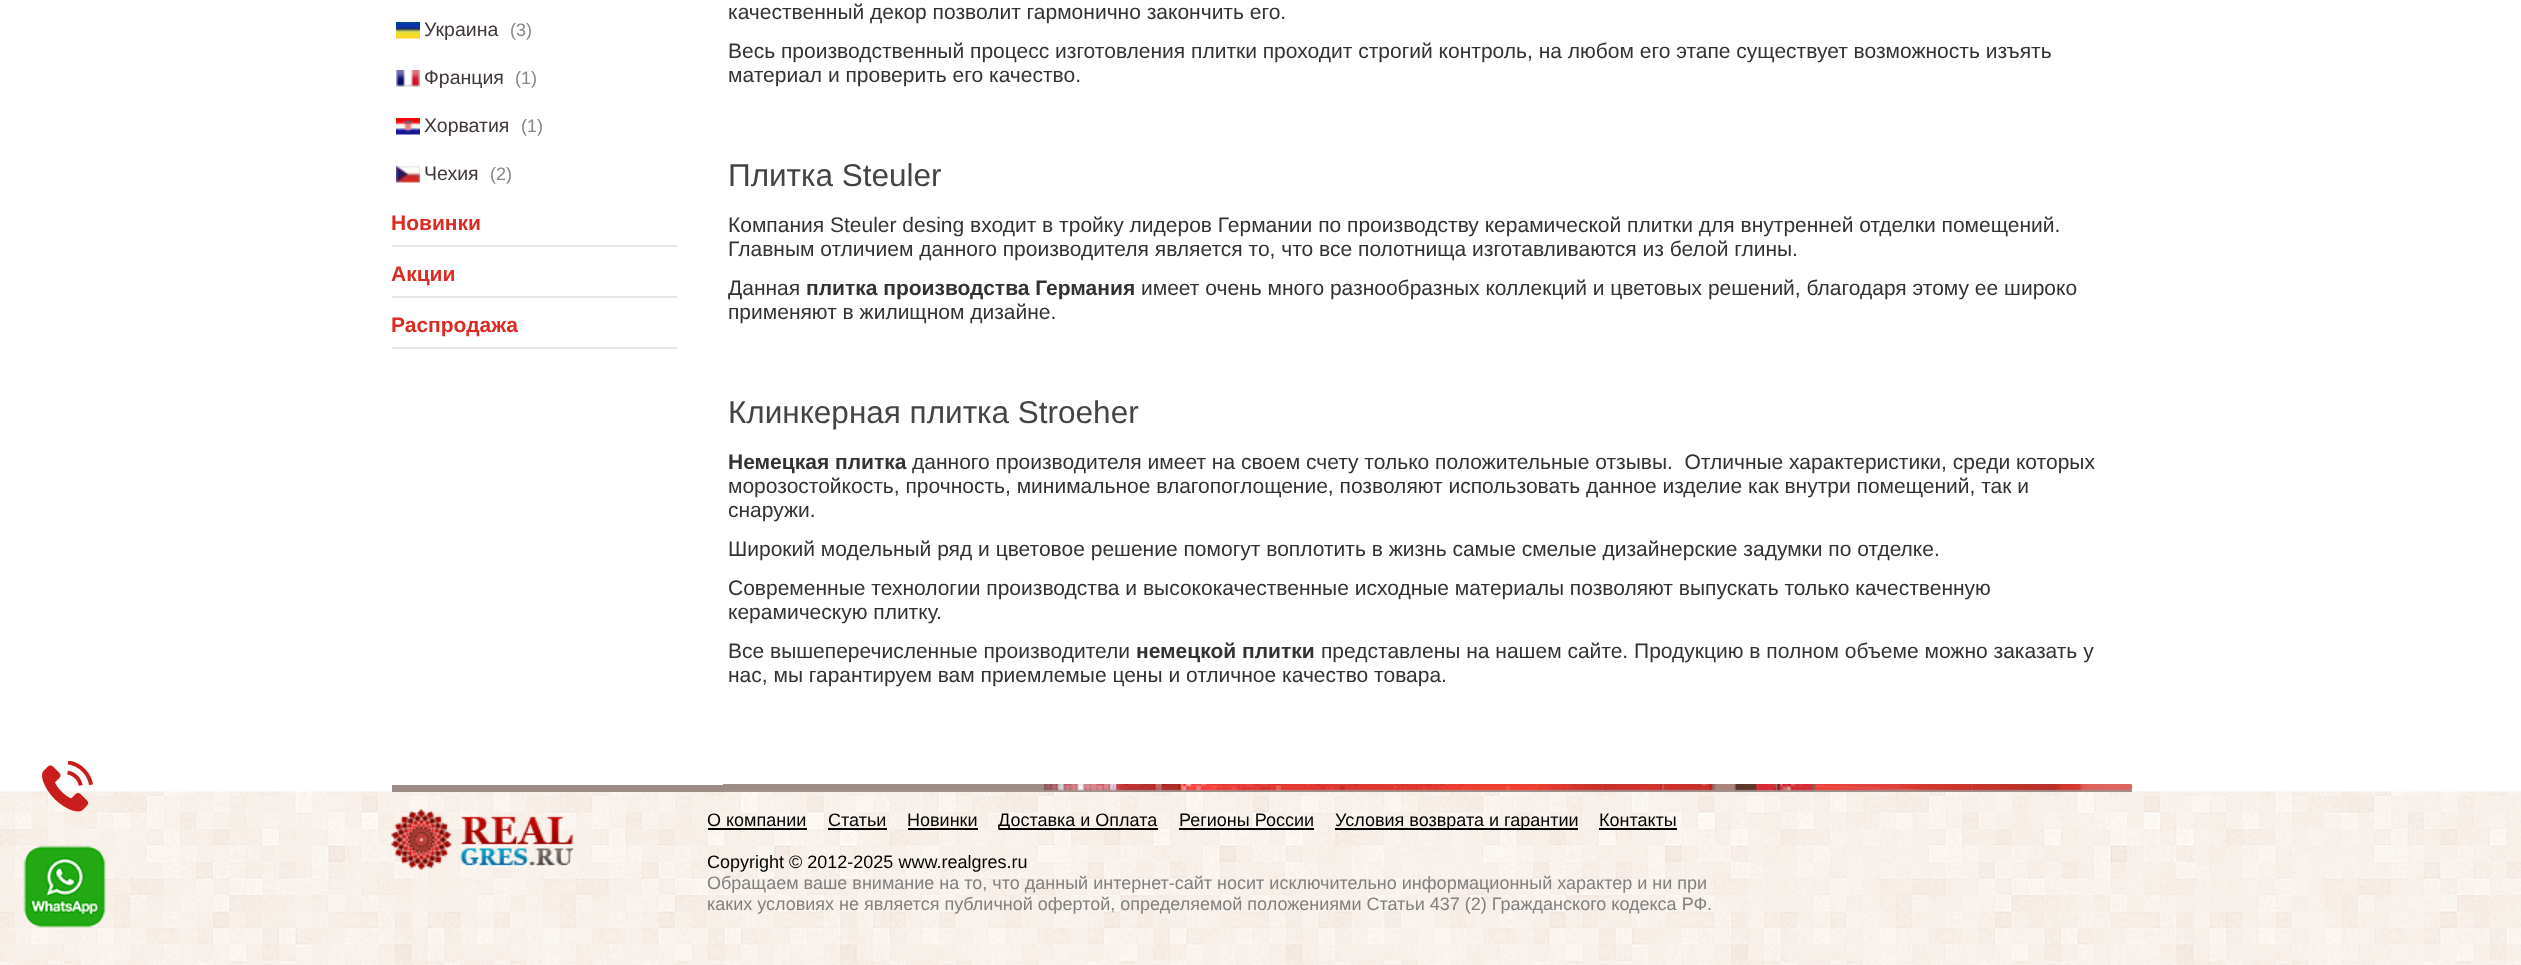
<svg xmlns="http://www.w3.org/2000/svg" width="2521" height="965">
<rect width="100%" height="100%" fill="#fff"/>
<image x="396" y="22" width="24" height="17" href="media/1.png"/>
<text x="424" y="36" style="font-family:Liberation Sans;font-size:19.5px;fill:#3f3637">Украина</text>
<text x="510" y="36" style="font-family:Liberation Sans;font-size:18px;fill:#888">(3)</text>
<image x="396" y="70" width="24" height="17" href="media/2.png"/>
<text x="424" y="84" style="font-family:Liberation Sans;font-size:19.5px;fill:#3f3637">Франция</text>
<text x="515" y="84" style="font-family:Liberation Sans;font-size:18px;fill:#888">(1)</text>
<image x="396" y="118" width="24" height="17" href="media/3.png"/>
<text x="424" y="132" style="font-family:Liberation Sans;font-size:19.5px;fill:#3f3637">Хорватия</text>
<text x="521" y="132" style="font-family:Liberation Sans;font-size:18px;fill:#888">(1)</text>
<image x="396" y="166" width="24" height="17" href="media/4.png"/>
<text x="424" y="180" style="font-family:Liberation Sans;font-size:19.5px;fill:#3f3637">Чехия</text>
<text x="490" y="180" style="font-family:Liberation Sans;font-size:18px;fill:#888">(2)</text>
<rect x="392" y="245" width="285" height="2" fill="#e9e7e5"/>
<text x="391" y="230" style="font-family:Liberation Sans;font-size:21px;font-weight:bold;fill:#db2b23">Новинки</text>
<rect x="392" y="296" width="285" height="2" fill="#e9e7e5"/>
<text x="391" y="281" style="font-family:Liberation Sans;font-size:21px;font-weight:bold;fill:#db2b23">Акции</text>
<rect x="392" y="347" width="285" height="2" fill="#e9e7e5"/>
<text x="391" y="332" style="font-family:Liberation Sans;font-size:21px;font-weight:bold;fill:#db2b23">Распродажа</text>
<text x="728" y="19" style="font-family:Liberation Sans;font-size:21px;fill:#323232">качественный декор позволит гармонично закончить его.</text>
<text x="728" y="58" style="font-family:Liberation Sans;font-size:21px;fill:#323232">Весь производственный процесс изготовления плитки проходит строгий контроль, на любом его этапе существует возможность изъять</text>
<text x="728" y="82" style="font-family:Liberation Sans;font-size:21px;fill:#323232">материал и проверить его качество.</text>
<text x="728" y="186" style="font-family:Liberation Sans;font-size:31.5px;fill:#444">Плитка Steuler</text>
<text x="728" y="232" style="font-family:Liberation Sans;font-size:21px;fill:#323232">Компания Steuler desing входит в тройку лидеров Германии по производству керамической плитки для внутренней отделки помещений.</text>
<text x="728" y="256" style="font-family:Liberation Sans;font-size:21px;fill:#323232">Главным отличием данного производителя является то, что все полотнища изготавливаются из белой глины.</text>
<text x="728" y="295" style="font-family:Liberation Sans;font-size:21px;fill:#323232">Данная</text>
<text x="806" y="295" style="font-family:Liberation Sans;font-size:21px;font-weight:bold;fill:#323232">плитка производства Германия</text>
<text x="1141" y="295" style="font-family:Liberation Sans;font-size:21px;fill:#323232">имеет очень много разнообразных коллекций и цветовых решений, благодаря этому ее широко</text>
<text x="728" y="319" style="font-family:Liberation Sans;font-size:21px;fill:#323232">применяют в жилищном дизайне.</text>
<text x="728" y="423" style="font-family:Liberation Sans;font-size:31.5px;fill:#444">Клинкерная плитка Stroeher</text>
<text x="728" y="469" style="font-family:Liberation Sans;font-size:21px;font-weight:bold;fill:#323232">Немецкая плитка</text>
<text x="912" y="469" style="font-family:Liberation Sans;font-size:21px;fill:#323232" xml:space="preserve">данного производителя имеет на своем счету только положительные отзывы.  Отличные характеристики, среди которых</text>
<text x="728" y="493" style="font-family:Liberation Sans;font-size:21px;fill:#323232">морозостойкость, прочность, минимальное влагопоглощение, позволяют использовать данное изделие как внутри помещений, так и</text>
<text x="728" y="517" style="font-family:Liberation Sans;font-size:21px;fill:#323232">снаружи.</text>
<text x="728" y="556" style="font-family:Liberation Sans;font-size:21px;fill:#323232">Широкий модельный ряд и цветовое решение помогут воплотить в жизнь самые смелые дизайнерские задумки по отделке.</text>
<text x="728" y="595" style="font-family:Liberation Sans;font-size:21px;fill:#323232">Современные технологии производства и высококачественные исходные материалы позволяют выпускать только качественную</text>
<text x="728" y="619" style="font-family:Liberation Sans;font-size:21px;fill:#323232">керамическую плитку.</text>
<text x="728" y="658" style="font-family:Liberation Sans;font-size:21px;fill:#323232">Все вышеперечисленные производители</text>
<text x="1136" y="658" style="font-family:Liberation Sans;font-size:21px;font-weight:bold;fill:#323232">немецкой плитки</text>
<text x="1321" y="658" style="font-family:Liberation Sans;font-size:21px;fill:#323232">представлены на нашем сайте. Продукцию в полном объеме можно заказать у</text>
<text x="728" y="682" style="font-family:Liberation Sans;font-size:21px;fill:#323232">нас, мы гарантируем вам приемлемые цены и отличное качество товара.</text>
<image x="0" y="791" width="2521" height="174" href="media/7.png"/>
<image x="42" y="761" width="51" height="51" href="media/5.png"/>
<image x="23" y="845" width="83" height="83" href="media/6.png"/>
<rect x="392" y="785" width="1740" height="7" fill="#9d8c86"/>
<image x="723" y="784" width="1409" height="8" href="media/8.png"/>
<image x="391" y="809" width="184" height="61" href="media/9.png"/>
<text x="707" y="826" style="font-family:Liberation Sans;font-size:18px;fill:#000">О компании</text>
<rect x="708" y="828" width="99" height="2" fill="#000"/>
<text x="828" y="826" style="font-family:Liberation Sans;font-size:18px;fill:#000">Статьи</text>
<rect x="828" y="828" width="59" height="2" fill="#000"/>
<text x="907" y="826" style="font-family:Liberation Sans;font-size:18px;fill:#000">Новинки</text>
<rect x="908" y="828" width="70" height="2" fill="#000"/>
<rect x="999" y="828" width="159" height="2" fill="#000"/>
<text x="998" y="826" style="font-family:Liberation Sans;font-size:18px;fill:#000">Доставка и Оплата</text>
<text x="1179" y="826" style="font-family:Liberation Sans;font-size:18px;fill:#000">Регионы России</text>
<rect x="1179" y="828" width="135" height="2" fill="#000"/>
<rect x="1335" y="828" width="243" height="2" fill="#000"/>
<text x="1335" y="826" style="font-family:Liberation Sans;font-size:18px;fill:#000">Условия возврата и гарантии</text>
<text x="1599" y="826" style="font-family:Liberation Sans;font-size:18px;fill:#000">Контакты</text>
<rect x="1599" y="828" width="78" height="2" fill="#000"/>
<text x="707" y="868" style="font-family:Liberation Sans;font-size:18px;fill:#000">Copyright © 2012-2025 www.realgres.ru</text>
<text x="707" y="889" style="font-family:Liberation Sans;font-size:18px;fill:#808080">Обращаем ваше внимание на то, что данный интернет-сайт носит исключительно информационный характер и ни при</text>
<text x="707" y="910" style="font-family:Liberation Sans;font-size:18px;fill:#808080">каких условиях не является публичной офертой, определяемой положениями Статьи 437 (2) Гражданского кодекса РФ.</text>
</svg>
